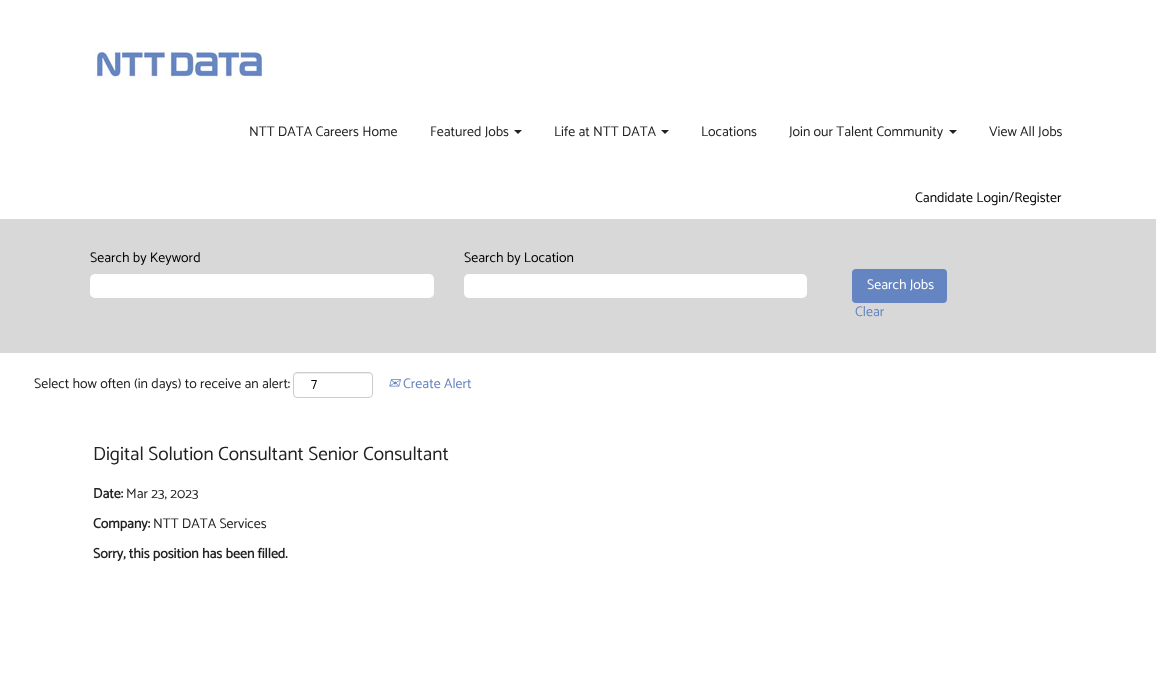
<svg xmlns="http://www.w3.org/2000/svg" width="1156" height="697">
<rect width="100%" height="100%" fill="#fff"/>
<image x="94" y="47" width="169" height="32" href="media/1.png"/>
<text x="249" y="136" style="font-family:Catamaran;font-size:14px;fill:#222">NTT DATA Careers Home</text>
<text x="430" y="136" style="font-family:Catamaran;font-size:14px;fill:#222">Featured Jobs</text>
<path d="M514 130h8l-4 4z" fill="#222"/>
<text x="554" y="136" style="font-family:Catamaran;font-size:14px;fill:#222">Life at NTT DATA</text>
<path d="M661 130h8l-4 4z" fill="#222"/>
<text x="701" y="136" style="font-family:Catamaran;font-size:14px;fill:#222">Locations</text>
<text x="789" y="136" style="font-family:Catamaran;font-size:14px;fill:#222">Join our Talent Community</text>
<path d="M949 130h8l-4 4z" fill="#222"/>
<text x="989" y="136" style="font-family:Catamaran;font-size:14px;fill:#222">View All Jobs</text>
<text x="915" y="202" style="font-family:Catamaran;font-size:14px;fill:#000">Candidate Login/Register</text>
<rect y="219" width="1156" height="134" fill="#d8d8d8"/>
<text x="90" y="262" style="font-family:Catamaran;font-size:14px;fill:#000">Search by Keyword</text>
<rect x="90" y="274" width="344" height="24" rx="5" fill="#fff"/>
<text x="464" y="262" style="font-family:Catamaran;font-size:14px;fill:#000">Search by Location</text>
<rect x="464" y="274" width="343" height="24" rx="5" fill="#fff"/>
<rect x="852" y="269" width="95" height="34" rx="4" fill="#6485c1"/>
<text x="867" y="289" style="font-family:Catamaran;font-size:14px;fill:#fff">Search Jobs</text>
<text x="855" y="316" style="font-family:Catamaran;font-size:14px;fill:#6485c1">Clear</text>
<text x="34" y="388" style="font-family:Catamaran;font-size:14px;fill:#222">Select how often (in days) to receive an alert:</text>
<path d="M297 374h72c2 0 3 1 3 3c0-7-11-4-15-4h-48c-4 0-15-3-15 4c0-2 1-3 3-3z" fill="#ececec"/>
<rect x="293.5" y="372.5" width="79" height="25" rx="3.5" fill="none" stroke="#ccc"/>
<text x="311" y="388" style="font-family:Catamaran;font-size:14px;fill:#000">7</text>
<text x="388" y="388" style="font-family:DejaVu Sans;font-size:14px;font-style:italic;fill:#6485c1">✉</text>
<text x="403" y="388" style="font-family:Catamaran;font-size:14px;fill:#6485c1">Create Alert</text>
<text x="93" y="460" style="font-family:Catamaran;font-size:19.25px;fill:#222">Digital Solution Consultant Senior Consultant</text>
<text x="93" y="498" style="font-family:Catamaran;font-size:14px;font-weight:bold;fill:#222">Date:</text>
<text x="126" y="498" style="font-family:Catamaran;font-size:14px;fill:#222">Mar 23, 2023</text>
<text x="93" y="528" style="font-family:Catamaran;font-size:14px;font-weight:bold;fill:#222">Company:</text>
<text x="153" y="528" style="font-family:Catamaran;font-size:14px;fill:#222">NTT DATA Services</text>
<text x="93" y="558" style="font-family:Catamaran;font-size:14px;font-weight:bold;fill:#222">Sorry, this position has been filled.</text>
</svg>
